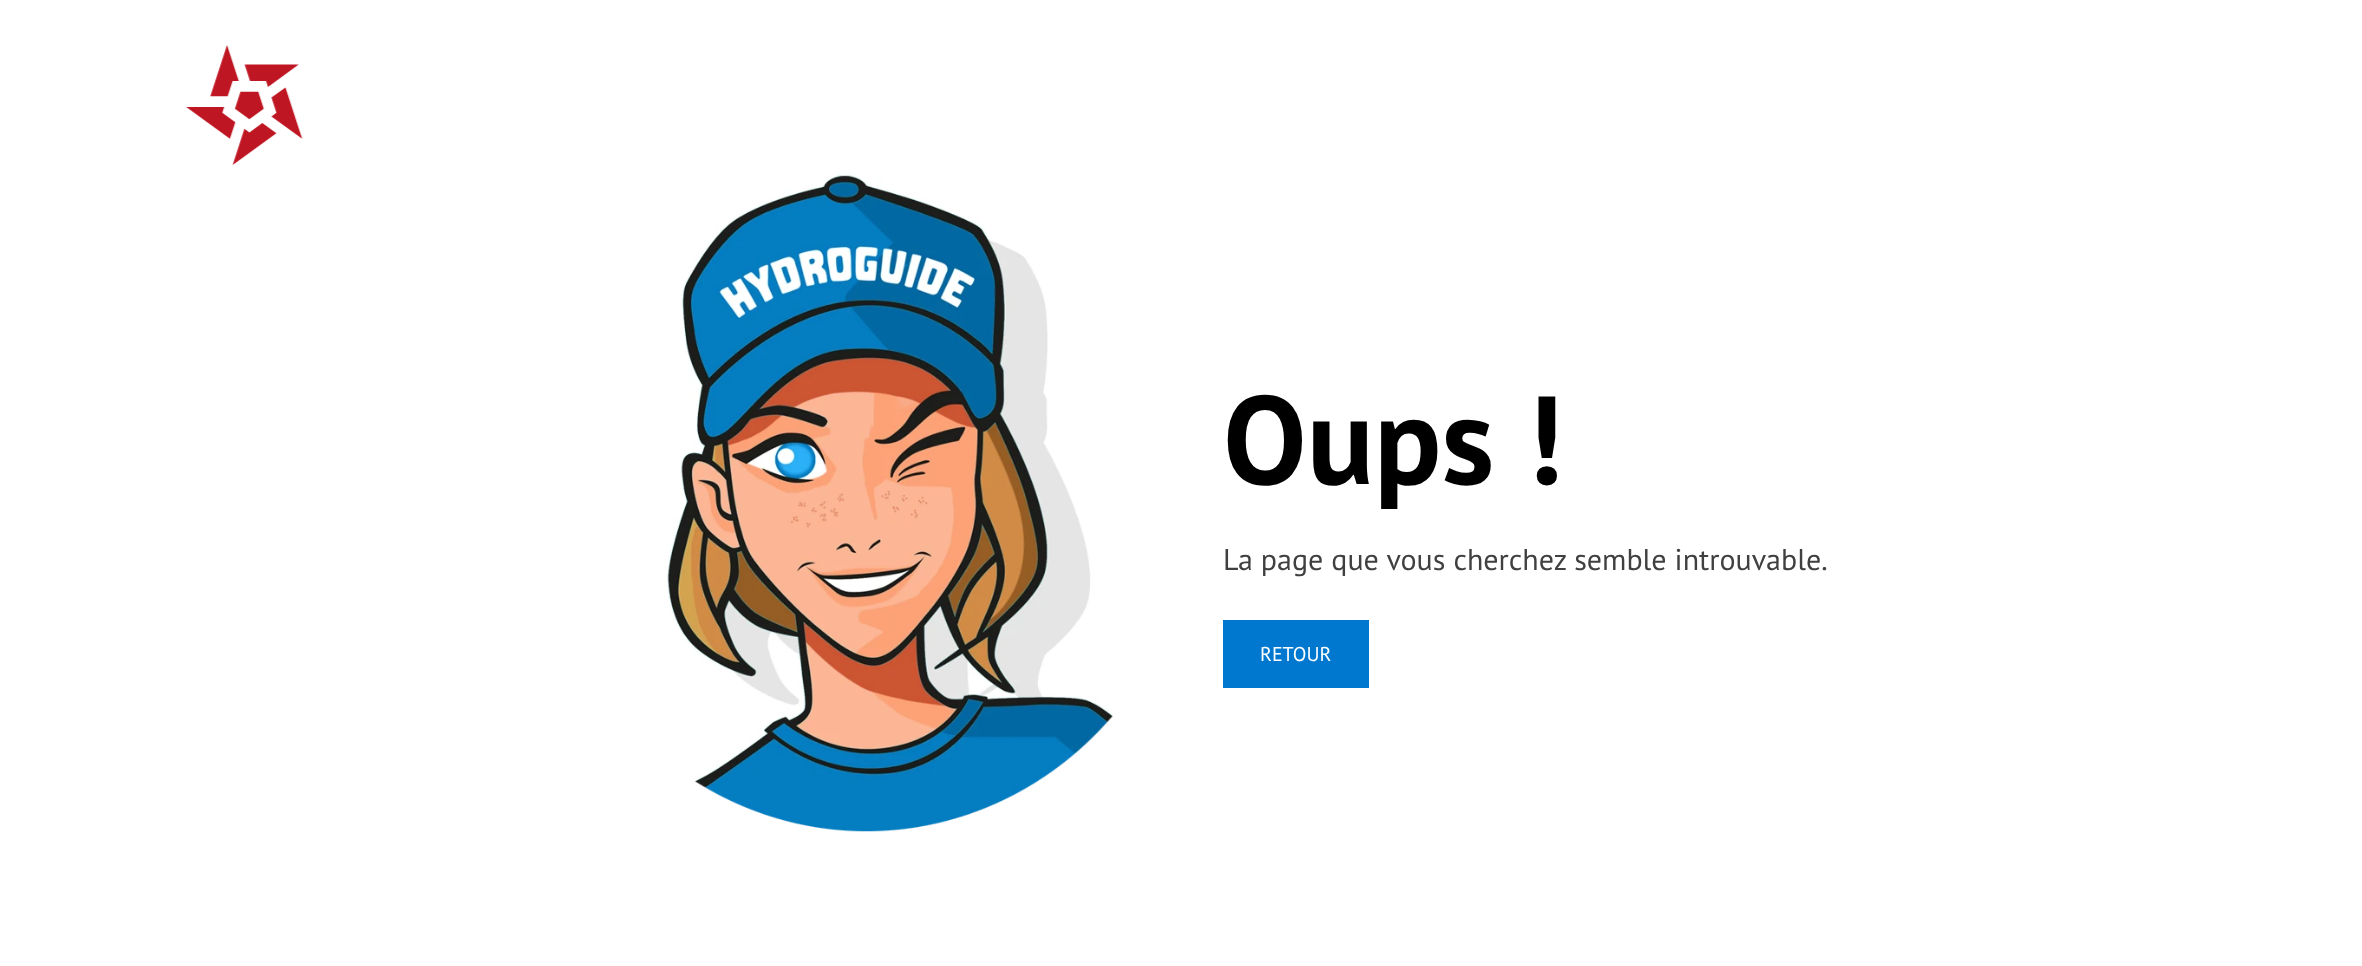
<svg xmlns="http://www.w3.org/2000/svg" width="2362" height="966">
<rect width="100%" height="100%" fill="#fff"/>
<image x="186" y="45" width="117" height="120" href="media/1.png"/>
<image x="667" y="174" width="446" height="658" href="media/2.png"/>
<text x="1223" y="484" style="font-family:PT Sans;font-size:125px;font-weight:bold;fill:#000">Oups !</text>
<text x="1223" y="570" style="font-family:PT Sans;font-size:30px;fill:#404040">La page que vous cherchez semble introuvable.</text>
<rect x="1223" y="620" width="146" height="68" fill="#0078cf"/>
<text x="1260" y="661" style="font-family:PT Sans;font-size:20px;fill:#fff">RETOUR</text>
</svg>
